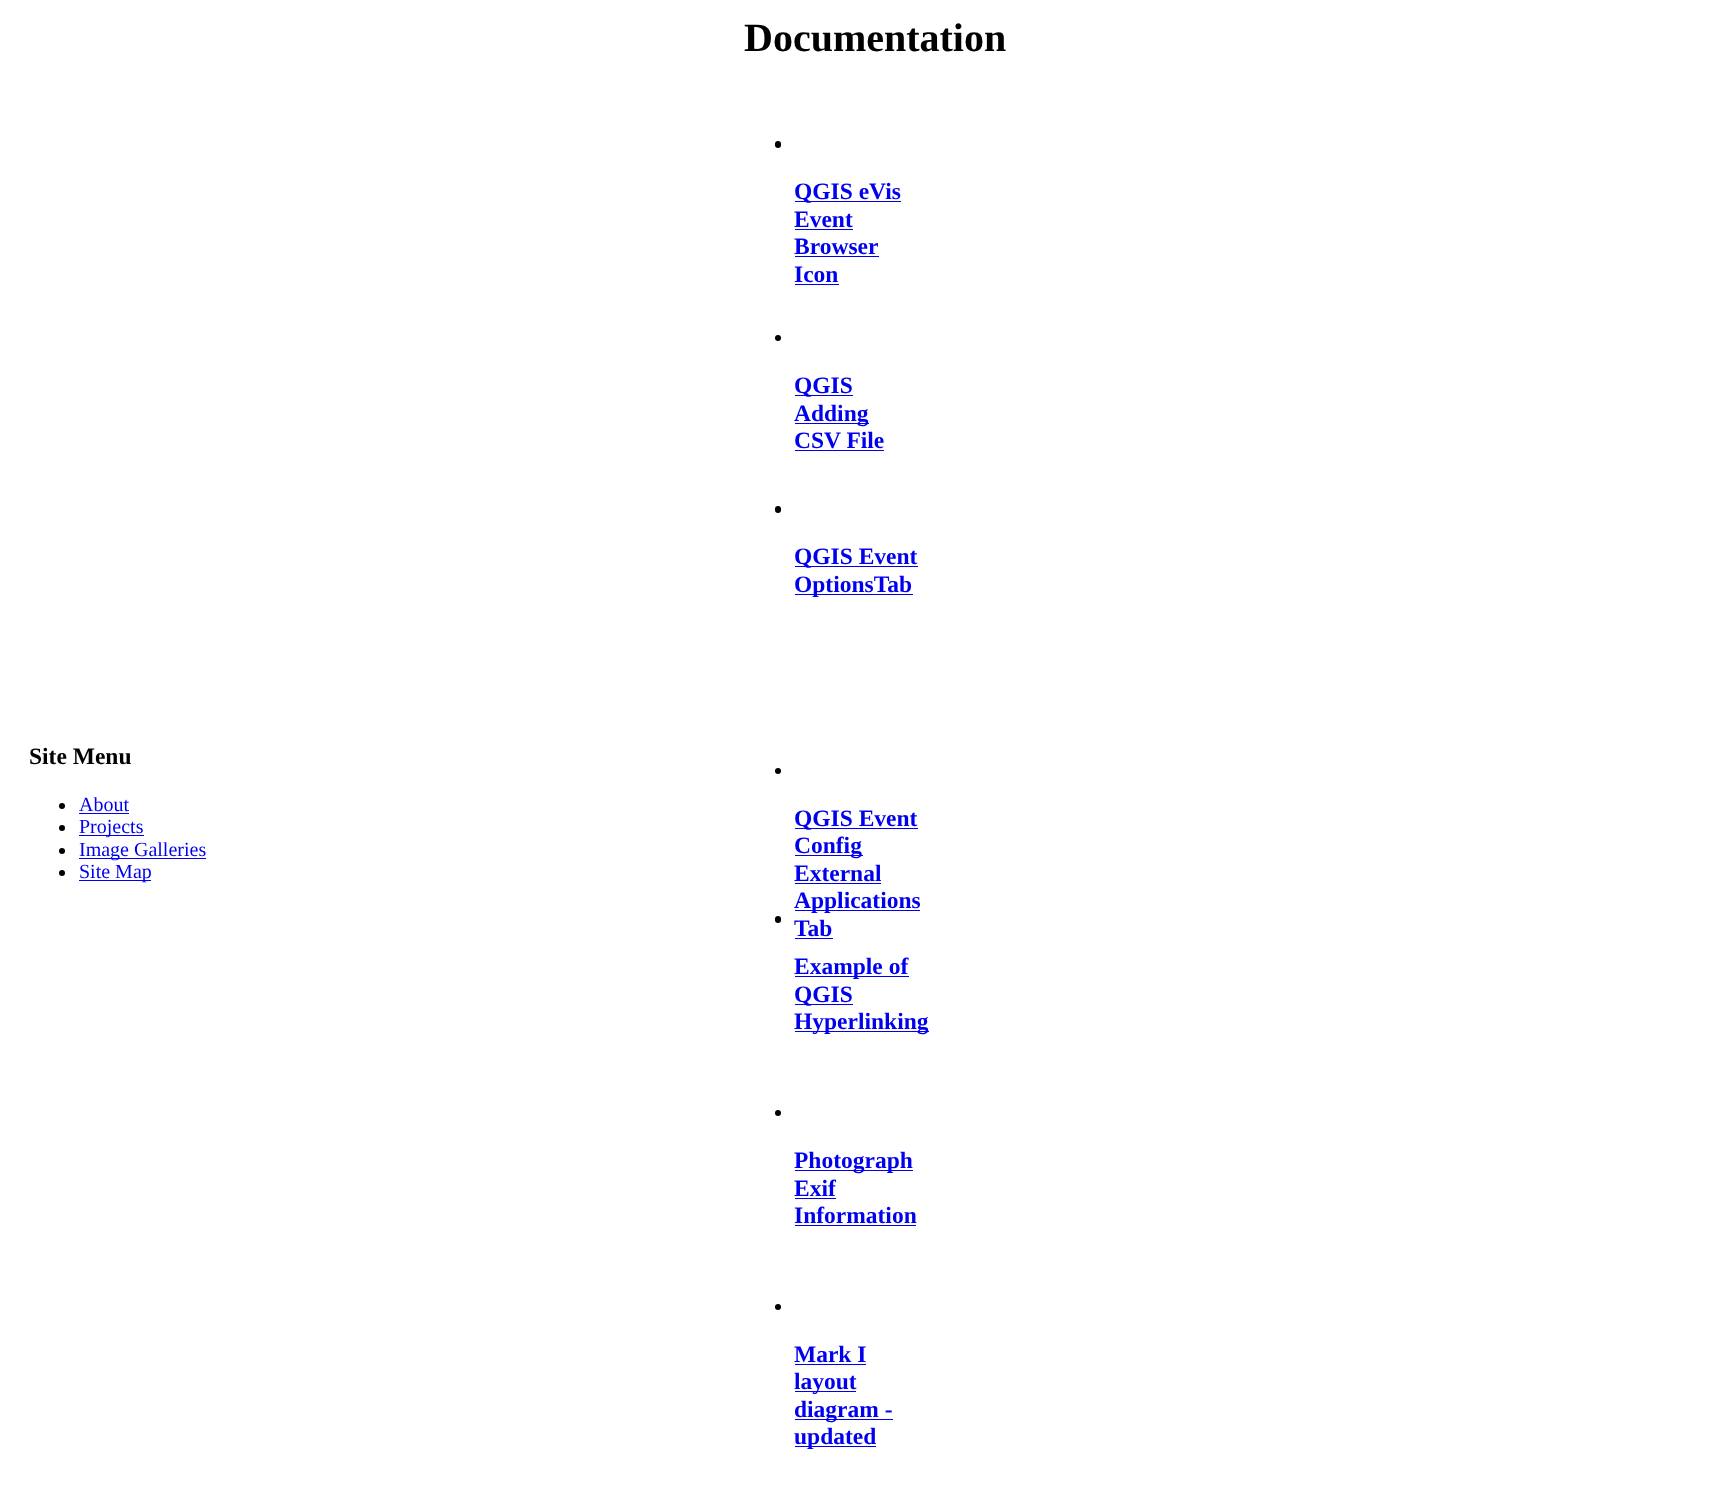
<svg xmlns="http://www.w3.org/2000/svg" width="1734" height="1501">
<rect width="100%" height="100%" fill="#fff"/>
<text x="29" y="764" style="font-family:Liberation Serif;font-size:23.5px;font-weight:bold;fill:#000">Site Menu</text>
<circle cx="62" cy="806" r="3" fill="#000"/>
<text x="79" y="811" style="font-family:Liberation Serif;font-size:20px;fill:#00e">About</text>
<rect x="79" y="813" width="50" height="1" fill="#00e"/>
<circle cx="62" cy="828" r="3" fill="#000"/>
<rect x="79" y="835" width="65" height="1" fill="#00e"/>
<text x="79" y="833" style="font-family:Liberation Serif;font-size:20px;fill:#00e">Projects</text>
<circle cx="62" cy="851" r="3" fill="#000"/>
<rect x="79" y="858" width="127" height="1" fill="#00e"/>
<text x="79" y="856" style="font-family:Liberation Serif;font-size:20px;fill:#00e">Image Galleries</text>
<circle cx="62" cy="873" r="3" fill="#000"/>
<rect x="79" y="880" width="72" height="1" fill="#00e"/>
<text x="79" y="878" style="font-family:Liberation Serif;font-size:20px;fill:#00e">Site Map</text>
<text x="744" y="51" style="font-family:Liberation Serif;font-size:40px;font-weight:bold;fill:#000">Documentation</text>
<rect x="775" y="141" width="6" height="7" rx="3" fill="#000"/>
<rect x="795" y="201" width="106" height="1" fill="#00e"/>
<text x="794" y="199" style="font-family:Liberation Serif;font-size:23.5px;font-weight:bold;fill:#00e">QGIS eVis</text>
<text x="794" y="227" style="font-family:Liberation Serif;font-size:23.5px;font-weight:bold;fill:#00e">Event</text>
<rect x="795" y="229" width="58" height="1" fill="#00e"/>
<text x="794" y="254" style="font-family:Liberation Serif;font-size:23.5px;font-weight:bold;fill:#00e">Browser</text>
<rect x="795" y="256" width="84" height="1" fill="#00e"/>
<text x="794" y="282" style="font-family:Liberation Serif;font-size:23.5px;font-weight:bold;fill:#00e">Icon</text>
<rect x="795" y="284" width="44" height="1" fill="#00e"/>
<circle cx="778" cy="338" r="3" fill="#000"/>
<rect x="795" y="395" width="58" height="1" fill="#00e"/>
<text x="794" y="393" style="font-family:Liberation Serif;font-size:23.5px;font-weight:bold;fill:#00e">QGIS</text>
<rect x="795" y="423" width="74" height="1" fill="#00e"/>
<text x="794" y="421" style="font-family:Liberation Serif;font-size:23.5px;font-weight:bold;fill:#00e">Adding</text>
<text x="794" y="448" style="font-family:Liberation Serif;font-size:23.5px;font-weight:bold;fill:#00e">CSV File</text>
<rect x="795" y="450" width="89" height="1" fill="#00e"/>
<rect x="775" y="506" width="6" height="7" rx="3" fill="#000"/>
<rect x="795" y="566" width="123" height="1" fill="#00e"/>
<text x="794" y="564" style="font-family:Liberation Serif;font-size:23.5px;font-weight:bold;fill:#00e">QGIS Event</text>
<rect x="795" y="594" width="118" height="1" fill="#00e"/>
<text x="794" y="592" style="font-family:Liberation Serif;font-size:23.5px;font-weight:bold;fill:#00e">OptionsTab</text>
<circle cx="778" cy="771" r="3" fill="#000"/>
<rect x="795" y="828" width="123" height="1" fill="#00e"/>
<text x="794" y="826" style="font-family:Liberation Serif;font-size:23.5px;font-weight:bold;fill:#00e">QGIS Event</text>
<rect x="795" y="855" width="68" height="1" fill="#00e"/>
<text x="794" y="853" style="font-family:Liberation Serif;font-size:23.5px;font-weight:bold;fill:#00e">Config</text>
<text x="794" y="881" style="font-family:Liberation Serif;font-size:23.5px;font-weight:bold;fill:#00e">External</text>
<rect x="795" y="883" width="86" height="1" fill="#00e"/>
<rect x="795" y="910" width="125" height="1" fill="#00e"/>
<text x="794" y="908" style="font-family:Liberation Serif;font-size:23.5px;font-weight:bold;fill:#00e">Applications</text>
<text x="794" y="936" style="font-family:Liberation Serif;font-size:23.5px;font-weight:bold;fill:#00e">Tab</text>
<rect x="795" y="938" width="38" height="1" fill="#00e"/>
<rect x="775" y="916" width="6" height="7" rx="3" fill="#000"/>
<rect x="795" y="976" width="114" height="1" fill="#00e"/>
<text x="794" y="974" style="font-family:Liberation Serif;font-size:23.5px;font-weight:bold;fill:#00e">Example of</text>
<rect x="795" y="1004" width="58" height="1" fill="#00e"/>
<text x="794" y="1002" style="font-family:Liberation Serif;font-size:23.5px;font-weight:bold;fill:#00e">QGIS</text>
<rect x="795" y="1031" width="134" height="1" fill="#00e"/>
<text x="794" y="1029" style="font-family:Liberation Serif;font-size:23.5px;font-weight:bold;fill:#00e">Hyperlinking</text>
<circle cx="778" cy="1113" r="3" fill="#000"/>
<rect x="795" y="1170" width="118" height="1" fill="#00e"/>
<text x="794" y="1168" style="font-family:Liberation Serif;font-size:23.5px;font-weight:bold;fill:#00e">Photograph</text>
<text x="794" y="1196" style="font-family:Liberation Serif;font-size:23.5px;font-weight:bold;fill:#00e">Exif</text>
<rect x="795" y="1198" width="41" height="1" fill="#00e"/>
<text x="794" y="1223" style="font-family:Liberation Serif;font-size:23.5px;font-weight:bold;fill:#00e">Information</text>
<rect x="795" y="1225" width="121" height="1" fill="#00e"/>
<circle cx="778" cy="1307" r="3" fill="#000"/>
<text x="794" y="1362" style="font-family:Liberation Serif;font-size:23.5px;font-weight:bold;fill:#00e">Mark I</text>
<rect x="795" y="1364" width="71" height="1" fill="#00e"/>
<rect x="795" y="1391" width="61" height="1" fill="#00e"/>
<text x="794" y="1389" style="font-family:Liberation Serif;font-size:23.5px;font-weight:bold;fill:#00e">layout</text>
<rect x="795" y="1419" width="98" height="1" fill="#00e"/>
<text x="794" y="1417" style="font-family:Liberation Serif;font-size:23.5px;font-weight:bold;fill:#00e">diagram -</text>
<rect x="795" y="1446" width="81" height="1" fill="#00e"/>
<text x="794" y="1444" style="font-family:Liberation Serif;font-size:23.5px;font-weight:bold;fill:#00e">updated</text>
</svg>
